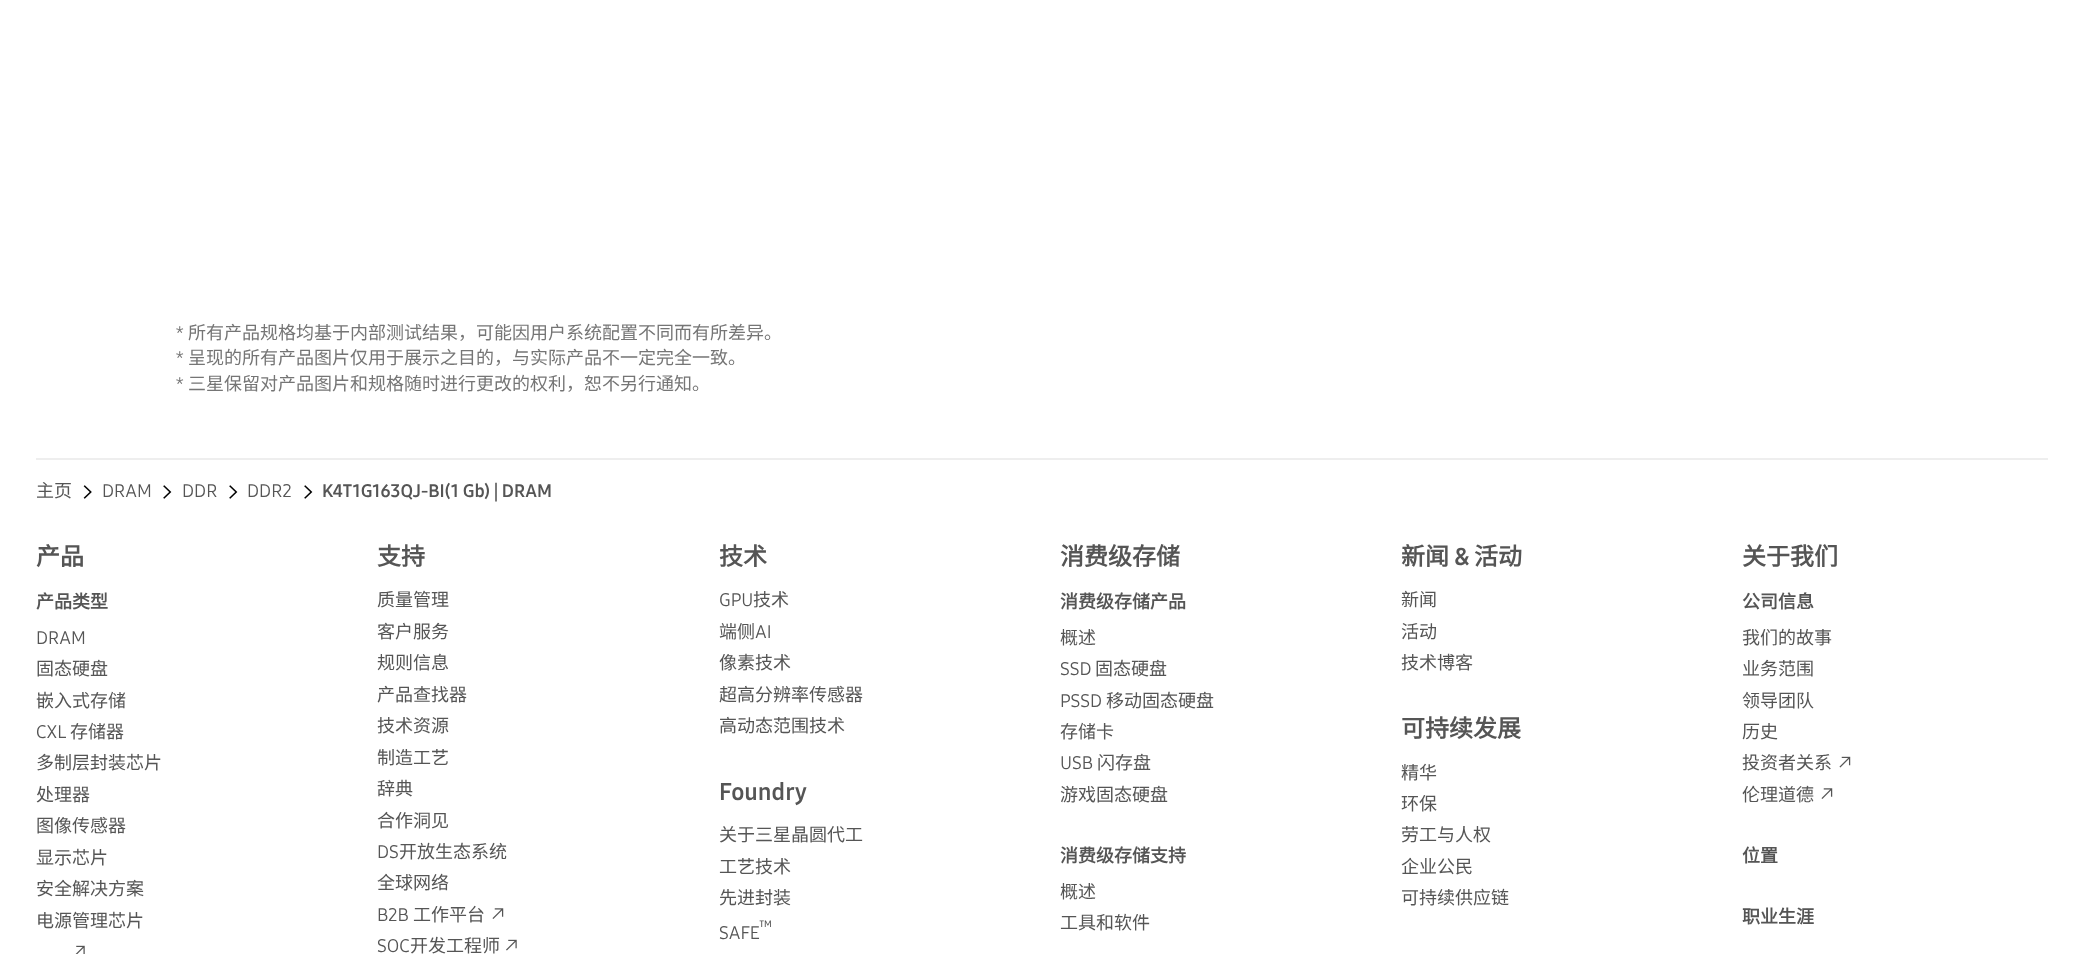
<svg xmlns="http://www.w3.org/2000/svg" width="2083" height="954">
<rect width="100%" height="100%" fill="#fff"/>
<text x="175" y="339" style="font-family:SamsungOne;font-size:18px;fill:#757575">*</text>
<text x="188" y="339" style="font-family:Noto Sans CJK SC;font-size:18px;fill:#757575">所有产品规格均基于内部测试结果，可能因用户系统配置不同而有所差异。</text>
<text x="175" y="364" style="font-family:SamsungOne;font-size:18px;fill:#757575">*</text>
<text x="188" y="364" style="font-family:Noto Sans CJK SC;font-size:18px;fill:#757575">呈现的所有产品图片仅用于展示之目的，与实际产品不一定完全一致。</text>
<text x="175" y="390" style="font-family:SamsungOne;font-size:18px;fill:#757575">*</text>
<text x="188" y="390" style="font-family:Noto Sans CJK SC;font-size:18px;fill:#757575">三星保留对产品图片和规格随时进行更改的权利，恕不另行通知。</text>
<rect x="36" y="458" width="2012" height="2" fill="#eee"/>
<text x="36" y="497" style="font-family:Noto Sans CJK SC;font-size:18px;fill:#555">主页</text>
<image x="83" y="485" width="9" height="14" href="media/1.png"/>
<text x="102" y="497" style="font-family:SamsungOne;font-size:18px;fill:#555">DRAM</text>
<image x="163" y="485" width="9" height="14" href="media/2.png"/>
<text x="182" y="497" style="font-family:SamsungOne;font-size:18px;fill:#555">DDR</text>
<image x="229" y="485" width="9" height="14" href="media/2.png"/>
<text x="247" y="497" style="font-family:SamsungOne;font-size:18px;fill:#555">DDR2</text>
<image x="304" y="485" width="9" height="14" href="media/2.png"/>
<text x="322" y="497" style="font-family:SamsungOne;font-size:18px;font-weight:bold;fill:#555">K4T1G163QJ-BI(1 Gb) | DRAM</text>
<text x="36" y="565" style="font-family:Noto Sans CJK SC;font-size:24px;font-weight:bold;fill:#555">产品</text>
<text x="36" y="608" style="font-family:Noto Sans CJK SC;font-size:18px;font-weight:bold;fill:#555">产品类型</text>
<text x="36" y="644" style="font-family:SamsungOne;font-size:18px;fill:#555">DRAM</text>
<text x="36" y="675" style="font-family:Noto Sans CJK SC;font-size:18px;fill:#555">固态硬盘</text>
<text x="36" y="707" style="font-family:Noto Sans CJK SC;font-size:18px;fill:#555">嵌入式存储</text>
<text x="36" y="738" style="font-family:SamsungOne;font-size:18px;fill:#555">CXL</text>
<text x="70" y="738" style="font-family:Noto Sans CJK SC;font-size:18px;fill:#555">存储器</text>
<text x="36" y="769" style="font-family:Noto Sans CJK SC;font-size:18px;fill:#555">多制层封装芯片</text>
<text x="36" y="801" style="font-family:Noto Sans CJK SC;font-size:18px;fill:#555">处理器</text>
<text x="36" y="832" style="font-family:Noto Sans CJK SC;font-size:18px;fill:#555">图像传感器</text>
<text x="36" y="864" style="font-family:Noto Sans CJK SC;font-size:18px;fill:#555">显示芯片</text>
<text x="36" y="895" style="font-family:Noto Sans CJK SC;font-size:18px;fill:#555">安全解决方案</text>
<text x="36" y="927" style="font-family:Noto Sans CJK SC;font-size:18px;fill:#555">电源管理芯片</text>
<image x="75" y="945" width="10" height="9" href="media/3.png"/>
<text x="377" y="565" style="font-family:Noto Sans CJK SC;font-size:24px;font-weight:bold;fill:#555">支持</text>
<text x="377" y="606" style="font-family:Noto Sans CJK SC;font-size:18px;fill:#555">质量管理</text>
<text x="377" y="638" style="font-family:Noto Sans CJK SC;font-size:18px;fill:#555">客户服务</text>
<text x="377" y="669" style="font-family:Noto Sans CJK SC;font-size:18px;fill:#555">规则信息</text>
<text x="377" y="701" style="font-family:Noto Sans CJK SC;font-size:18px;fill:#555">产品查找器</text>
<text x="377" y="732" style="font-family:Noto Sans CJK SC;font-size:18px;fill:#555">技术资源</text>
<text x="377" y="764" style="font-family:Noto Sans CJK SC;font-size:18px;fill:#555">制造工艺</text>
<text x="377" y="795" style="font-family:Noto Sans CJK SC;font-size:18px;fill:#555">辞典</text>
<text x="377" y="827" style="font-family:Noto Sans CJK SC;font-size:18px;fill:#555">合作洞见</text>
<text x="377" y="858" style="font-family:SamsungOne;font-size:18px;fill:#555">DS</text>
<text x="399" y="858" style="font-family:Noto Sans CJK SC;font-size:18px;fill:#555">开放生态系统</text>
<text x="377" y="889" style="font-family:Noto Sans CJK SC;font-size:18px;fill:#555">全球网络</text>
<text x="377" y="921" style="font-family:SamsungOne;font-size:18px;fill:#555">B2B</text>
<text x="413" y="921" style="font-family:Noto Sans CJK SC;font-size:18px;fill:#555">工作平台</text>
<image x="492" y="908" width="12" height="11" href="media/4.png"/>
<text x="377" y="952" style="font-family:SamsungOne;font-size:18px;fill:#555">SOC</text>
<text x="410" y="952" style="font-family:Noto Sans CJK SC;font-size:18px;fill:#555">开发工程师</text>
<image x="506" y="939" width="11" height="12" href="media/5.png"/>
<text x="719" y="565" style="font-family:Noto Sans CJK SC;font-size:24px;font-weight:bold;fill:#555">技术</text>
<text x="719" y="606" style="font-family:SamsungOne;font-size:18px;fill:#555">GPU</text>
<text x="753" y="606" style="font-family:Noto Sans CJK SC;font-size:18px;fill:#555">技术</text>
<text x="719" y="638" style="font-family:Noto Sans CJK SC;font-size:18px;fill:#555">端侧</text>
<text x="755" y="638" style="font-family:SamsungOne;font-size:18px;fill:#555">AI</text>
<text x="719" y="669" style="font-family:Noto Sans CJK SC;font-size:18px;fill:#555">像素技术</text>
<text x="719" y="701" style="font-family:Noto Sans CJK SC;font-size:18px;fill:#555">超高分辨率传感器</text>
<text x="719" y="732" style="font-family:Noto Sans CJK SC;font-size:18px;fill:#555">高动态范围技术</text>
<text x="719" y="800" style="font-family:SamsungOne;font-size:24px;font-weight:bold;fill:#555">Foundry</text>
<text x="719" y="841" style="font-family:Noto Sans CJK SC;font-size:18px;fill:#555">关于三星晶圆代工</text>
<text x="719" y="873" style="font-family:Noto Sans CJK SC;font-size:18px;fill:#555">工艺技术</text>
<text x="719" y="904" style="font-family:Noto Sans CJK SC;font-size:18px;fill:#555">先进封装</text>
<text x="759" y="931" style="font-family:SamsungOne;font-size:15px;fill:#555">™</text>
<text x="719" y="939" style="font-family:SamsungOne;font-size:18px;fill:#555">SAFE</text>
<text x="1060" y="565" style="font-family:Noto Sans CJK SC;font-size:24px;font-weight:bold;fill:#555">消费级存储</text>
<text x="1060" y="608" style="font-family:Noto Sans CJK SC;font-size:18px;font-weight:bold;fill:#555">消费级存储产品</text>
<text x="1060" y="644" style="font-family:Noto Sans CJK SC;font-size:18px;fill:#555">概述</text>
<text x="1060" y="675" style="font-family:SamsungOne;font-size:18px;fill:#555">SSD</text>
<text x="1095" y="675" style="font-family:Noto Sans CJK SC;font-size:18px;fill:#555">固态硬盘</text>
<text x="1060" y="707" style="font-family:SamsungOne;font-size:18px;fill:#555">PSSD</text>
<text x="1106" y="707" style="font-family:Noto Sans CJK SC;font-size:18px;fill:#555">移动固态硬盘</text>
<text x="1060" y="738" style="font-family:Noto Sans CJK SC;font-size:18px;fill:#555">存储卡</text>
<text x="1060" y="769" style="font-family:SamsungOne;font-size:18px;fill:#555">USB</text>
<text x="1097" y="769" style="font-family:Noto Sans CJK SC;font-size:18px;fill:#555">闪存盘</text>
<text x="1060" y="801" style="font-family:Noto Sans CJK SC;font-size:18px;fill:#555">游戏固态硬盘</text>
<text x="1060" y="862" style="font-family:Noto Sans CJK SC;font-size:18px;font-weight:bold;fill:#555">消费级存储支持</text>
<text x="1060" y="898" style="font-family:Noto Sans CJK SC;font-size:18px;fill:#555">概述</text>
<text x="1060" y="929" style="font-family:Noto Sans CJK SC;font-size:18px;fill:#555">工具和软件</text>
<text x="1401" y="565" style="font-family:Noto Sans CJK SC;font-size:24px;font-weight:bold;fill:#555">新闻</text>
<text x="1454" y="565" style="font-family:SamsungOne;font-size:24px;font-weight:bold;fill:#555">&amp;</text>
<text x="1474" y="565" style="font-family:Noto Sans CJK SC;font-size:24px;font-weight:bold;fill:#555">活动</text>
<text x="1401" y="606" style="font-family:Noto Sans CJK SC;font-size:18px;fill:#555">新闻</text>
<text x="1401" y="638" style="font-family:Noto Sans CJK SC;font-size:18px;fill:#555">活动</text>
<text x="1401" y="669" style="font-family:Noto Sans CJK SC;font-size:18px;fill:#555">技术博客</text>
<text x="1401" y="737" style="font-family:Noto Sans CJK SC;font-size:24px;font-weight:bold;fill:#555">可持续发展</text>
<text x="1401" y="779" style="font-family:Noto Sans CJK SC;font-size:18px;fill:#555">精华</text>
<text x="1401" y="810" style="font-family:Noto Sans CJK SC;font-size:18px;fill:#555">环保</text>
<text x="1401" y="841" style="font-family:Noto Sans CJK SC;font-size:18px;fill:#555">劳工与人权</text>
<text x="1401" y="873" style="font-family:Noto Sans CJK SC;font-size:18px;fill:#555">企业公民</text>
<text x="1401" y="904" style="font-family:Noto Sans CJK SC;font-size:18px;fill:#555">可持续供应链</text>
<text x="1742" y="565" style="font-family:Noto Sans CJK SC;font-size:24px;font-weight:bold;fill:#555">关于我们</text>
<text x="1742" y="608" style="font-family:Noto Sans CJK SC;font-size:18px;font-weight:bold;fill:#555">公司信息</text>
<text x="1742" y="644" style="font-family:Noto Sans CJK SC;font-size:18px;fill:#555">我们的故事</text>
<text x="1742" y="675" style="font-family:Noto Sans CJK SC;font-size:18px;fill:#555">业务范围</text>
<text x="1742" y="707" style="font-family:Noto Sans CJK SC;font-size:18px;fill:#555">领导团队</text>
<text x="1742" y="738" style="font-family:Noto Sans CJK SC;font-size:18px;fill:#555">历史</text>
<text x="1742" y="769" style="font-family:Noto Sans CJK SC;font-size:18px;fill:#555">投资者关系</text>
<image x="1839" y="756" width="12" height="12" href="media/6.png"/>
<text x="1742" y="801" style="font-family:Noto Sans CJK SC;font-size:18px;fill:#555">伦理道德</text>
<image x="1821" y="788" width="12" height="11" href="media/4.png"/>
<text x="1742" y="862" style="font-family:Noto Sans CJK SC;font-size:18px;font-weight:bold;fill:#555">位置</text>
<text x="1742" y="923" style="font-family:Noto Sans CJK SC;font-size:18px;font-weight:bold;fill:#555">职业生涯</text>
</svg>
